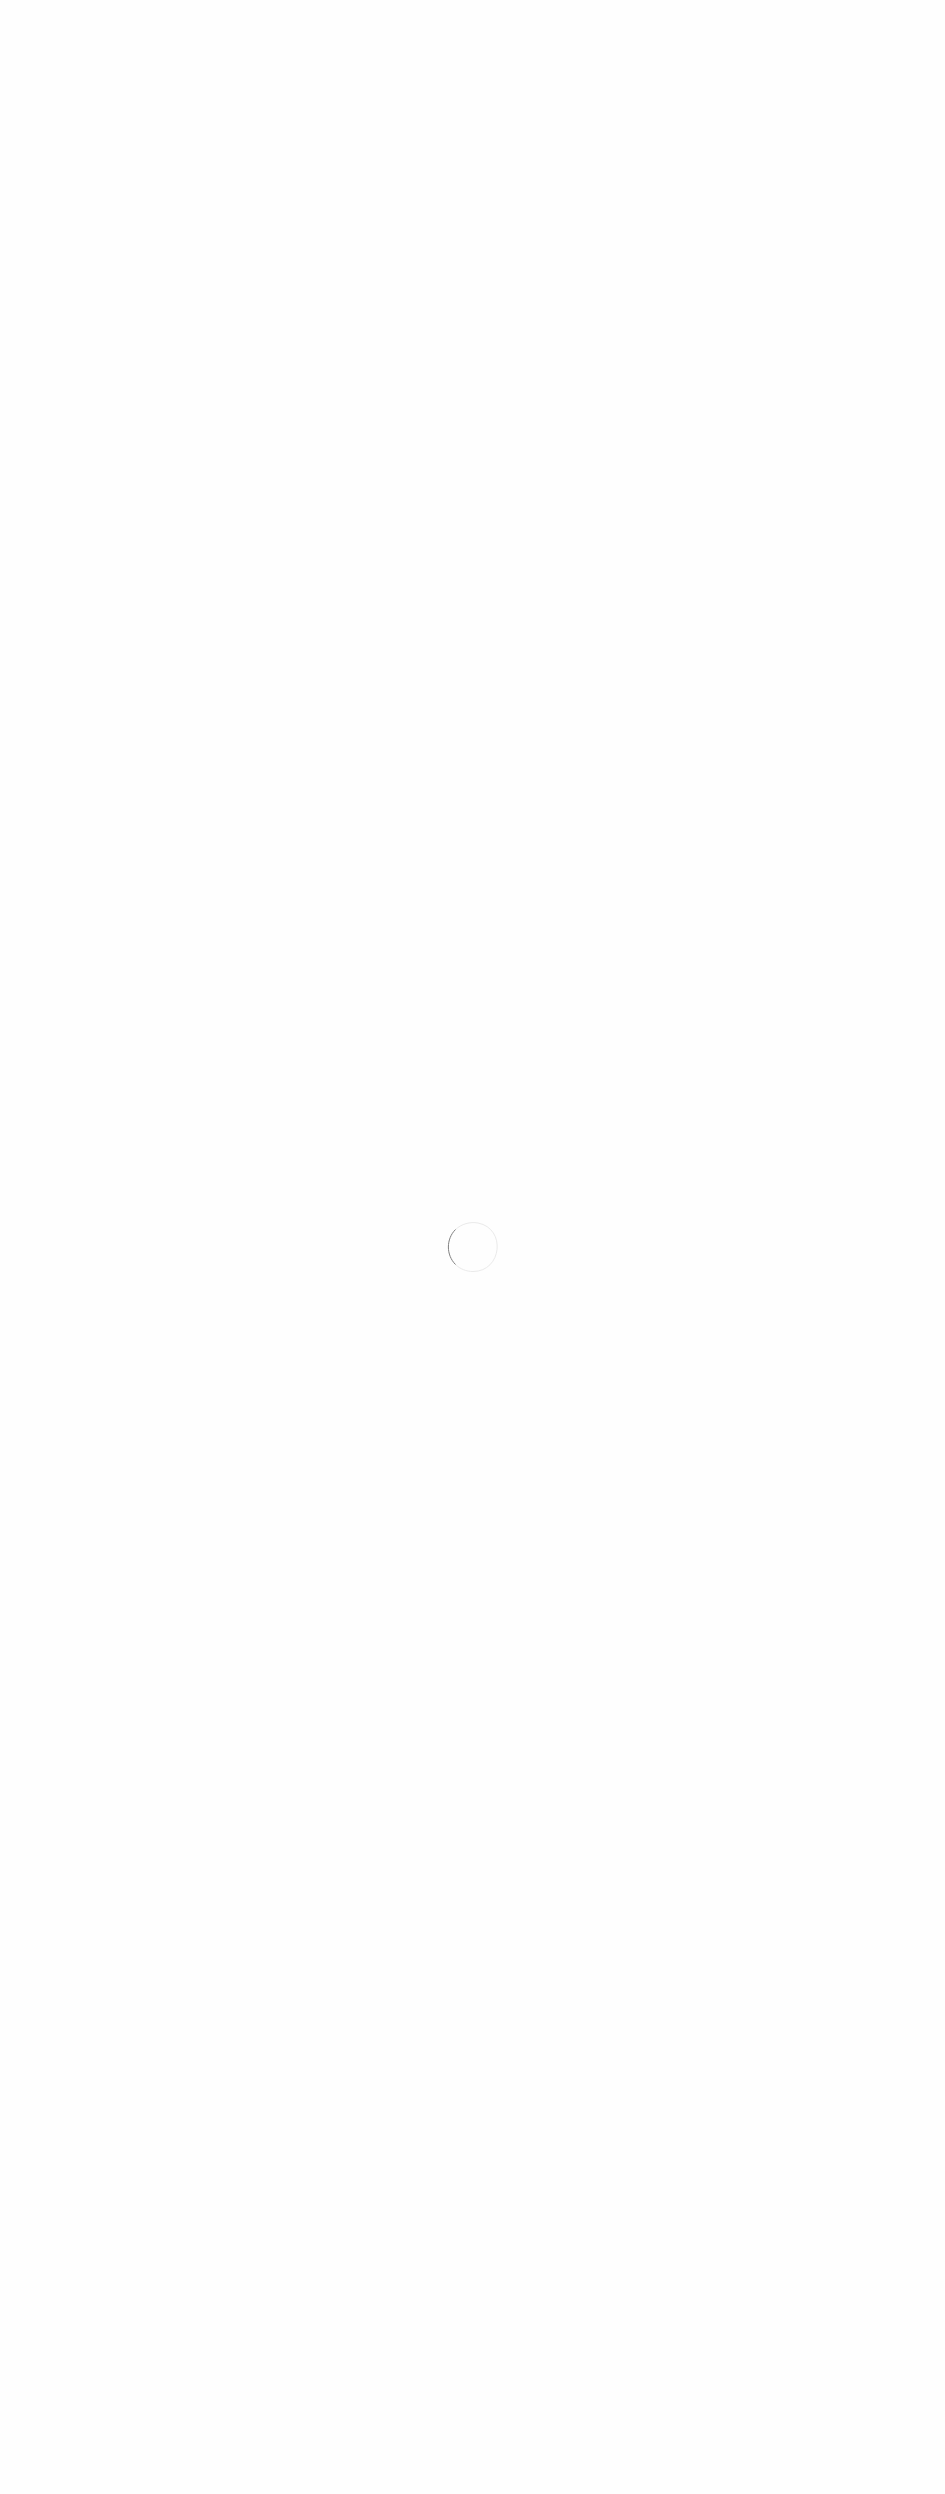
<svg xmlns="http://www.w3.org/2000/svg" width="945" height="2494">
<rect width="100%" height="100%" fill="#fefefe"/>
<image x="11" y="24" width="248" height="40" href="media/1.png"/>
<image x="22" y="266" width="440" height="294" href="media/2.png"/>
<image x="22" y="773" width="210" height="140" href="media/3.png"/>
<image x="252" y="773" width="211" height="140" href="media/4.png"/>
<image x="483" y="773" width="210" height="140" href="media/5.png"/>
<image x="713" y="773" width="210" height="140" href="media/6.png"/>
<path d="M455.5 1229.5c6-5.5 14.5-8 22.5-6.5c28.5 5.5 24 48.5-5 48.5c-6.5 0-13-2.5-17.5-7" fill="none" stroke="#eaeaea"/>
<path d="M455.5 1264.5c-9.5-9.5-9.5-25.5 0-35" fill="none" stroke="#7f7f7f"/>
<image x="0" y="1362" width="945" height="557" href="media/7.png"/>
<image x="337" y="1525" width="13" height="10" href="media/8.png"/>
<image x="337" y="1592" width="13" height="10" href="media/8.png"/>
<image x="337" y="1660" width="13" height="10" href="media/8.png"/>
<image x="337" y="1727" width="13" height="10" href="media/8.png"/>
<image x="652" y="1525" width="13" height="10" href="media/8.png"/>
<image x="652" y="1592" width="13" height="10" href="media/8.png"/>
<image x="652" y="1660" width="13" height="10" href="media/8.png"/>
<image x="652" y="1727" width="13" height="10" href="media/8.png"/>
<image x="38" y="1957" width="38" height="38" href="media/9.png"/>
<image x="351" y="1959" width="40" height="36" href="media/10.png"/>
<image x="666" y="1957" width="40" height="35" href="media/11.png"/>
</svg>
